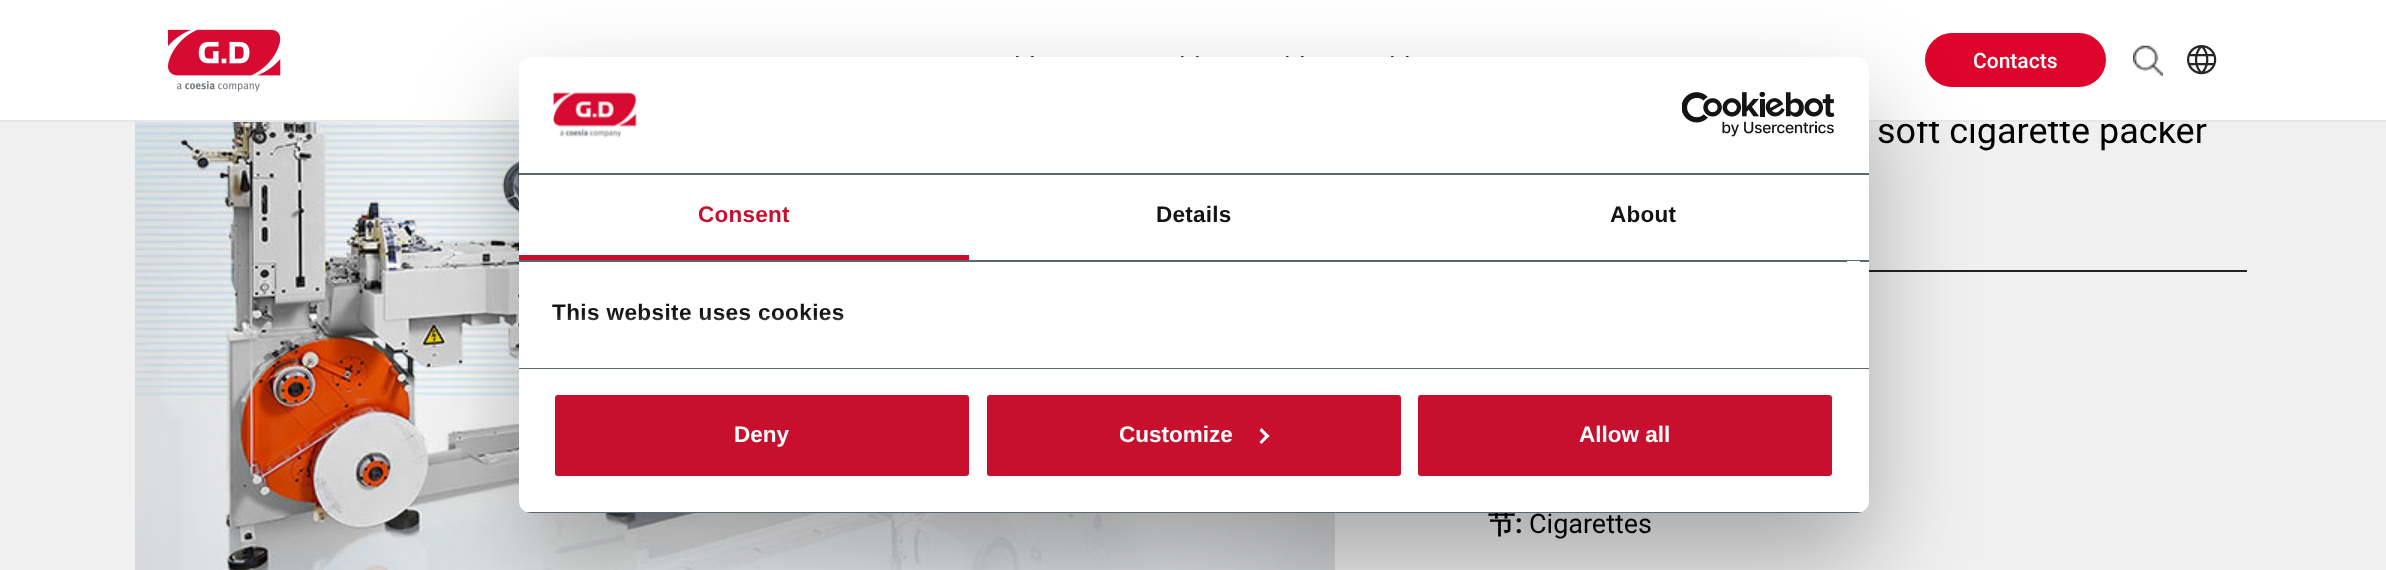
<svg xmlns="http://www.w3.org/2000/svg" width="2386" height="570">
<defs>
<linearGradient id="g1" gradientUnits="userSpaceOnUse" x1="1178" y1="368" x2="1178" y2="314"><stop offset="0" stop-color="#fff"/><stop offset="0.5" stop-color="#fff" stop-opacity="0.8"/><stop offset="1" stop-color="#fff" stop-opacity="0"/></linearGradient>
<clipPath id="clip1"><rect x="519" y="57" width="1350" height="456" rx="12"/></clipPath>
</defs>
<rect width="100%" height="100%" fill="#f0f0f0"/>
<text x="1877" y="143" style="font-family:Roboto;font-size:36px;fill:#000">soft cigarette packer</text>
<rect width="2386" height="120" fill="#fff"/>
<rect y="120" width="2386" height="2" fill="#e6e7e7"/>
<image x="1016" y="56" width="18" height="1" href="media/4.png"/>
<image x="1181" y="56" width="18" height="1" href="media/4.png"/>
<image x="1286" y="56" width="18" height="1" href="media/4.png"/>
<image x="1391" y="56" width="18" height="1" href="media/4.png"/>
<rect x="1925" y="33" width="181" height="54" rx="27" fill="#dd052b"/>
<image x="135" y="122" width="1200" height="448" href="media/7.png"/>
<rect x="1869" y="270" width="378" height="2" fill="#222"/>
<rect x="519" y="105" width="1350" height="456" rx="12" fill="#0000004d" filter="blur(51px)"/>
<text x="1488" y="533" style="font-family:WenQuanYi Zen Hei;font-size:27px;font-weight:bold;fill:#000">节</text>
<rect x="519" y="57" width="1350" height="456" rx="12" fill="#fff"/>
<rect x="519" y="173" width="1350" height="2" fill="#5b6770"/>
<image x="553" y="92" width="84" height="46" href="media/1.png"/>
<image x="1682" y="92" width="153" height="45" href="media/2.png"/>
<rect x="519" y="260" width="1350" height="2" fill="#5b6770"/>
<rect x="519" y="255" width="450" height="5" fill="#c8102e"/>
<text x="698" y="222" style="font-family:Liberation Sans;font-size:22.5px;font-weight:bold;letter-spacing:0.25px;fill:#c8102e">Consent</text>
<text x="1156" y="222" style="font-family:Liberation Sans;font-size:22.5px;font-weight:bold;letter-spacing:0.25px;fill:#141414">Details</text>
<text x="1610" y="222" style="font-family:Liberation Sans;font-size:22.5px;font-weight:bold;letter-spacing:0.25px;fill:#141414">About</text>
<rect x="519" y="368" width="1350" height="1" fill="#5b6770"/>
<rect x="1847" y="261" width="13" height="1" fill="#fff"/>
<text x="552" y="320" style="font-family:Liberation Sans;font-size:22.5px;font-weight:bold;letter-spacing:0.4px;fill:#141414">This website uses cookies</text>
<rect x="557" y="315" width="286" height="6" fill="url(#g1)"/>
<g clip-path="url(#clip1)">
<rect x="519" y="512" width="1350" height="1" fill="#5b6770"/>
</g>
<rect x="553.5" y="393.5" width="417" height="84" rx="4.5" fill="#c8102e" stroke="#fff" stroke-width="3"/>
<text x="734" y="442" style="font-family:Liberation Sans;font-size:22.5px;font-weight:bold;fill:#fff">Deny</text>
<rect x="985.5" y="393.5" width="417" height="84" rx="4.5" fill="#c8102e" stroke="#fff" stroke-width="3"/>
<text x="1119" y="442" style="font-family:Liberation Sans;font-size:22.5px;font-weight:bold;fill:#fff">Customize</text>
<path d="M1261.5 428l8 8l-2.5 2l-7.5-7.5z" fill="#fff"/>
<path d="M1267 434l2.5 2l-8 8l-2-2z" fill="#fff"/>
<rect x="1416.5" y="393.5" width="417" height="84" rx="4.5" fill="#c8102e" stroke="#fff" stroke-width="3"/>
<text x="1579" y="442" style="font-family:Liberation Sans;font-size:22.5px;font-weight:bold;fill:#fff">Allow all</text>
<image x="167" y="29" width="114" height="63" href="media/3.png"/>
<text x="1973" y="68" style="font-family:Roboto;font-size:21px;font-weight:500;fill:#fff">Contacts</text>
<image x="2133" y="45" width="30" height="31" href="media/5.png"/>
<image x="2187" y="45" width="30" height="30" href="media/6.png"/>
<text x="1515" y="533" style="font-family:Roboto;font-size:27px;font-weight:bold;fill:#000">:</text>
<text x="1529" y="533" style="font-family:Roboto;font-size:27px;fill:#000">Cigarettes</text>
</svg>
